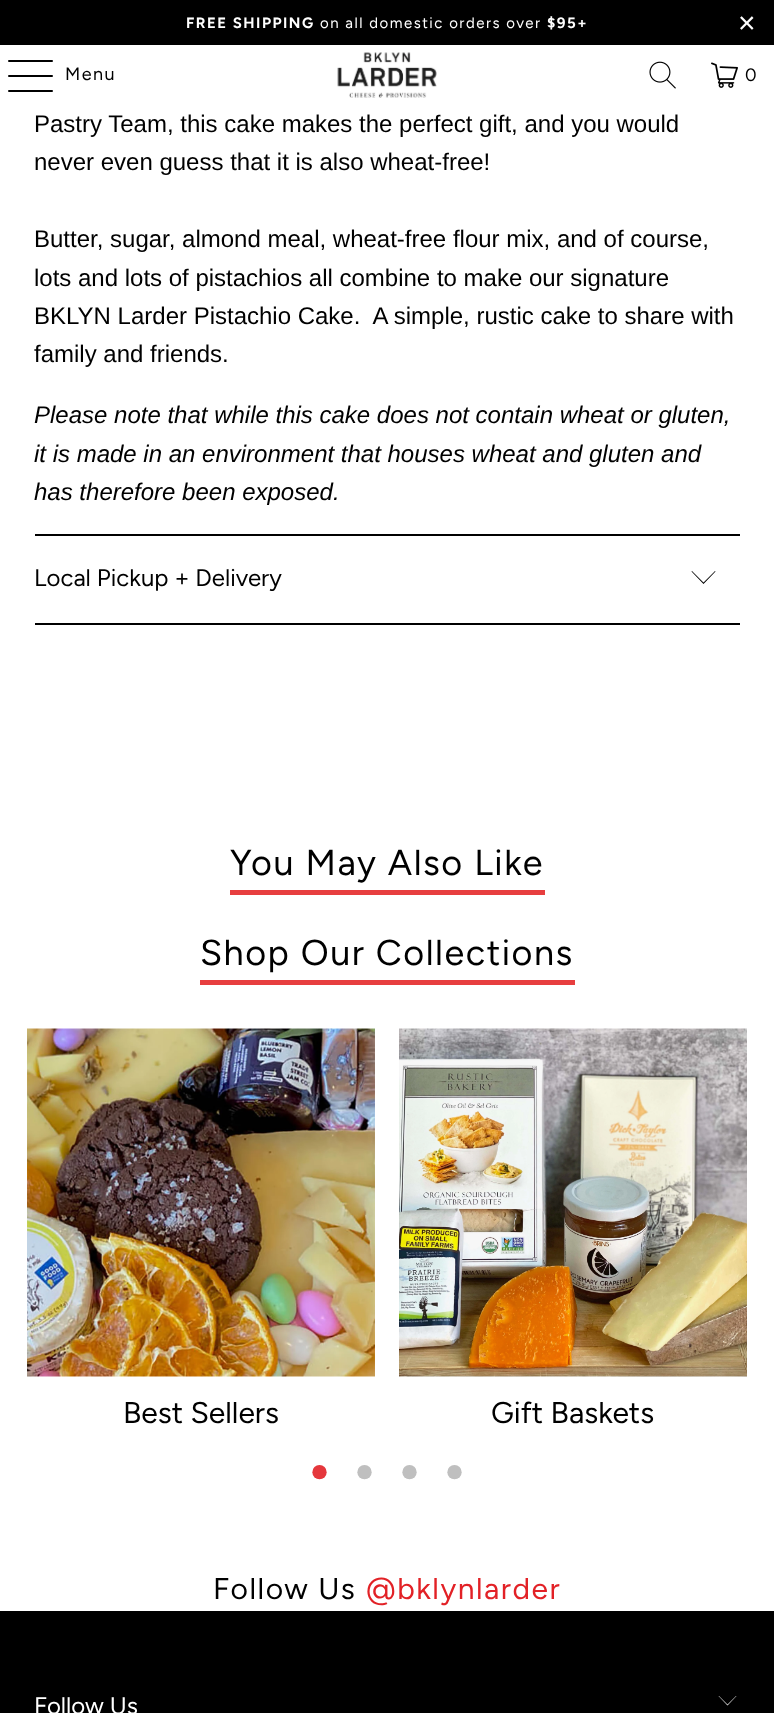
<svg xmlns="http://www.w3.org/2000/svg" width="774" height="1713">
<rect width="100%" height="100%" fill="#fff"/>
<rect width="774" height="45" fill="#000"/>
<text x="186" y="28" style="font-family:Figtree;font-size:15px;font-weight:bold;letter-spacing:1.5px;fill:#fff">FREE SHIPPING</text>
<text x="320" y="28" style="font-family:Figtree;font-size:15px;letter-spacing:1.5px;fill:#fff">on all domestic orders over</text>
<text x="547" y="28" style="font-family:Figtree;font-size:15px;font-weight:bold;letter-spacing:1.5px;fill:#fff">$95+</text>
<text x="738" y="33" style="font-family:Liberation Sans;font-size:30px;letter-spacing:1.5px;fill:#fff">×</text>
<rect x="8" y="60" width="45" height="2" rx="1" fill="#000"/>
<rect x="8" y="75" width="45" height="2" rx="1" fill="#000"/>
<rect x="8" y="90" width="45" height="2" rx="1" fill="#000"/>
<text x="65" y="80" style="font-family:Figtree;font-size:18px;letter-spacing:1.5px;fill:#000">Menu</text>
<image x="337" y="52" width="100" height="46" href="media/1.png"/>
<image x="649" y="61" width="27" height="28" href="media/2.png"/>
<image x="711" y="62" width="27" height="26" href="media/3.png"/>
<text x="745" y="81" style="font-family:Figtree;font-size:18px;letter-spacing:1.5px;fill:#000">0</text>
<text x="34" y="132" style="font-family:Liberation Sans;font-size:24px;fill:#000">Pastry Team, this cake makes the perfect gift, and you would</text>
<text x="34" y="170" style="font-family:Liberation Sans;font-size:24px;fill:#000">never even guess that it is also wheat-free!</text>
<text x="34" y="247" style="font-family:Liberation Sans;font-size:24px;fill:#000">Butter, sugar, almond meal, wheat-free flour mix, and of course,</text>
<text x="34" y="286" style="font-family:Liberation Sans;font-size:24px;fill:#000">lots and lots of pistachios all combine to make our signature</text>
<text x="34" y="324" style="font-family:Liberation Sans;font-size:24px;fill:#000" xml:space="preserve">BKLYN Larder Pistachio Cake.  A simple, rustic cake to share with</text>
<text x="34" y="362" style="font-family:Liberation Sans;font-size:24px;fill:#000">family and friends.</text>
<text x="34" y="423" style="font-family:Liberation Sans;font-size:24px;font-style:italic;fill:#000">Please note that while this cake does not contain wheat or gluten,</text>
<text x="34" y="462" style="font-family:Liberation Sans;font-size:24px;font-style:italic;fill:#000">it is made in an environment that houses wheat and gluten and</text>
<text x="34" y="500" style="font-family:Liberation Sans;font-size:24px;font-style:italic;fill:#000">has therefore been exposed.</text>
<rect x="35" y="534" width="705" height="2" fill="#000"/>
<rect x="35" y="623" width="705" height="2" fill="#000"/>
<text x="34" y="586" style="font-family:Figtree;font-size:24px;fill:#000">Local Pickup + Delivery</text>
<path d="M703.5 584l-12-12.5l.5-.5l11.5 11.5l11.5-11.5l.5 .5z" fill="#000"/>
<text x="230" y="875" style="font-family:Figtree;font-size:36px;letter-spacing:1.5px;fill:#000">You May Also Like</text>
<rect x="230" y="890" width="315" height="5" fill="#e73e3f"/>
<text x="200" y="965" style="font-family:Figtree;font-size:36px;letter-spacing:1.5px;fill:#000">Shop Our Collections</text>
<rect x="200" y="980" width="375" height="5" fill="#e73e3f"/>
<image x="27" y="1028" width="348" height="349" href="media/4.png"/>
<text x="123" y="1423" style="font-family:Figtree;font-size:30px;fill:#000">Best Sellers</text>
<image x="399" y="1028" width="348" height="349" href="media/5.png"/>
<text x="491" y="1423" style="font-family:Figtree;font-size:30px;fill:#000">Gift Baskets</text>
<text x="309" y="1492" style="font-family:Liberation Serif;font-size:60px;fill:#e5373c">•</text>
<text x="354" y="1492" style="font-family:Liberation Serif;font-size:60px;fill:#bfbfbf">•</text>
<text x="399" y="1492" style="font-family:Liberation Serif;font-size:60px;fill:#bfbfbf">•</text>
<text x="444" y="1492" style="font-family:Liberation Serif;font-size:60px;fill:#bfbfbf">•</text>
<text x="213" y="1599" style="font-family:Figtree;font-size:30px;letter-spacing:1.5px;fill:#000">Follow Us</text>
<text x="366" y="1599" style="font-family:Figtree;font-size:30px;letter-spacing:1.5px;fill:#e22126">@bklynlarder</text>
<rect y="1611" width="774" height="102" fill="#000"/>
<text x="34" y="1714" style="font-family:Figtree;font-size:24px;fill:#fff">Follow Us</text>
<path d="M727.5 1705.5l-9-9.5h.5l8.5 8.5l8.5-8.5h.5z" fill="#fff"/>
</svg>
